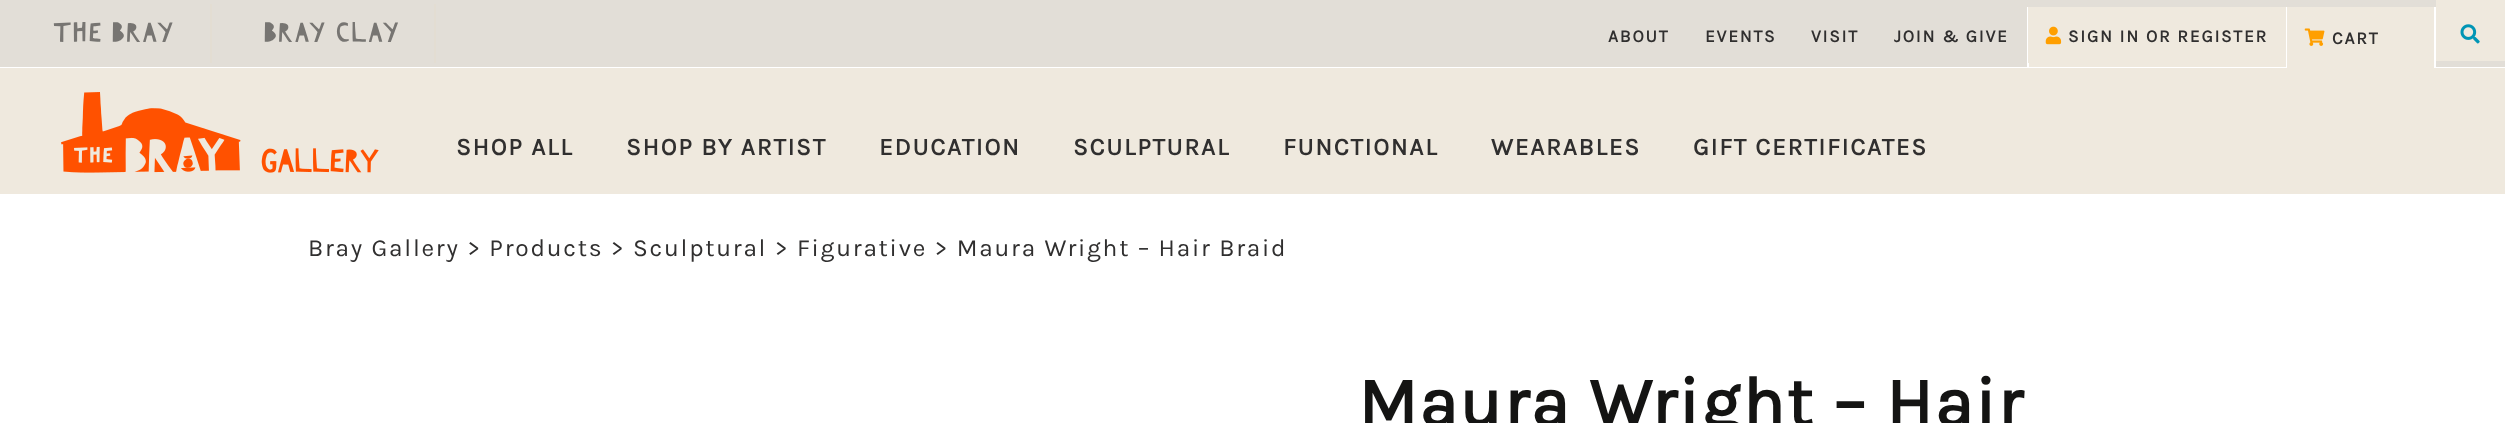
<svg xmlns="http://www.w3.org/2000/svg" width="2505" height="423">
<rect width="100%" height="100%" fill="#fff"/>
<rect width="2505" height="67" fill="#e2ded7"/>
<rect x="210" y="4" width="2" height="59" fill="#e3ddd2"/>
<text x="53" y="42" style="font-family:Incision;font-size:28px;letter-spacing:1.75px;fill:#777572">THE BRAY</text>
<rect x="434" y="4" width="2" height="59" fill="#e3ddd2"/>
<text x="264" y="42" style="font-family:Incision;font-size:28px;letter-spacing:1.75px;fill:#777572">BRAY CLAY</text>
<text x="1608" y="42" style="font-family:Karla;font-size:17.5px;font-weight:bold;letter-spacing:1.75px;fill:#302f2f">ABOUT</text>
<text x="1705" y="42" style="font-family:Karla;font-size:17.5px;font-weight:bold;letter-spacing:1.75px;fill:#302f2f">EVENTS</text>
<text x="1811" y="42" style="font-family:Karla;font-size:17.5px;font-weight:bold;letter-spacing:1.75px;fill:#302f2f">VISIT</text>
<text x="1894" y="42" style="font-family:Karla;font-size:17.5px;font-weight:bold;letter-spacing:1.75px;fill:#302f2f">JOIN &amp; GIVE</text>
<rect x="2029" y="63" width="257" height="4" fill="#efe9de"/>
<rect x="2027" y="7" width="2" height="60" fill="#fff"/>
<rect x="2028" y="7" width="258" height="56" fill="#efe9de"/>
<image x="2045" y="26" width="17" height="19" href="media/1.png"/>
<text x="2068" y="42" style="font-family:Karla;font-size:17.5px;font-weight:bold;letter-spacing:1.75px;fill:#302f2f">SIGN IN OR REGISTER</text>
<rect x="2434" y="7" width="2" height="60" fill="#fff"/>
<rect x="2286" y="7" width="1" height="60" fill="#fff"/>
<rect x="2287" y="7" width="147" height="61" fill="#efe9de"/>
<image x="2304" y="28" width="21" height="18" href="media/2.png"/>
<text x="2332" y="44" style="font-family:Karla;font-size:17.5px;font-weight:bold;letter-spacing:1.75px;fill:#302f2f">CART</text>
<rect x="2436" width="69" height="61" fill="#efe9de"/>
<image x="2460" y="24" width="20" height="20" href="media/3.png"/>
<rect y="68" width="2505" height="126" fill="#efe9de"/>
<image x="61" y="92" width="318" height="81" href="media/4.png"/>
<text x="456" y="155" style="font-family:Karla;font-size:24.5px;font-weight:bold;letter-spacing:1.75px;fill:#302f2f">SHOP ALL</text>
<text x="626" y="155" style="font-family:Karla;font-size:24.5px;font-weight:bold;letter-spacing:1.75px;fill:#302f2f">SHOP BY ARTIST</text>
<text x="879" y="155" style="font-family:Karla;font-size:24.5px;font-weight:bold;letter-spacing:1.75px;fill:#302f2f">EDUCATION</text>
<text x="1073" y="155" style="font-family:Karla;font-size:24.5px;font-weight:bold;letter-spacing:1.75px;fill:#302f2f">SCULPTURAL</text>
<text x="1283" y="155" style="font-family:Karla;font-size:24.5px;font-weight:bold;letter-spacing:1.75px;fill:#302f2f">FUNCTIONAL</text>
<text x="1491" y="155" style="font-family:Karla;font-size:24.5px;font-weight:bold;letter-spacing:1.75px;fill:#302f2f">WEARABLES</text>
<text x="1693" y="155" style="font-family:Karla;font-size:24.5px;font-weight:bold;letter-spacing:1.75px;fill:#302f2f">GIFT CERTIFICATES</text>
<text x="308" y="256" style="font-family:Karla;font-size:24.5px;letter-spacing:1.75px;fill:#302f2f">Bray Gallery &gt; Products &gt; Sculptural &gt; Figurative &gt; Maura Wright – Hair Braid</text>
<text x="1358" y="426" style="font-family:Karla;font-size:70px;font-weight:bold;letter-spacing:1.75px;fill:#141413">Maura Wright – Hair</text>
</svg>
